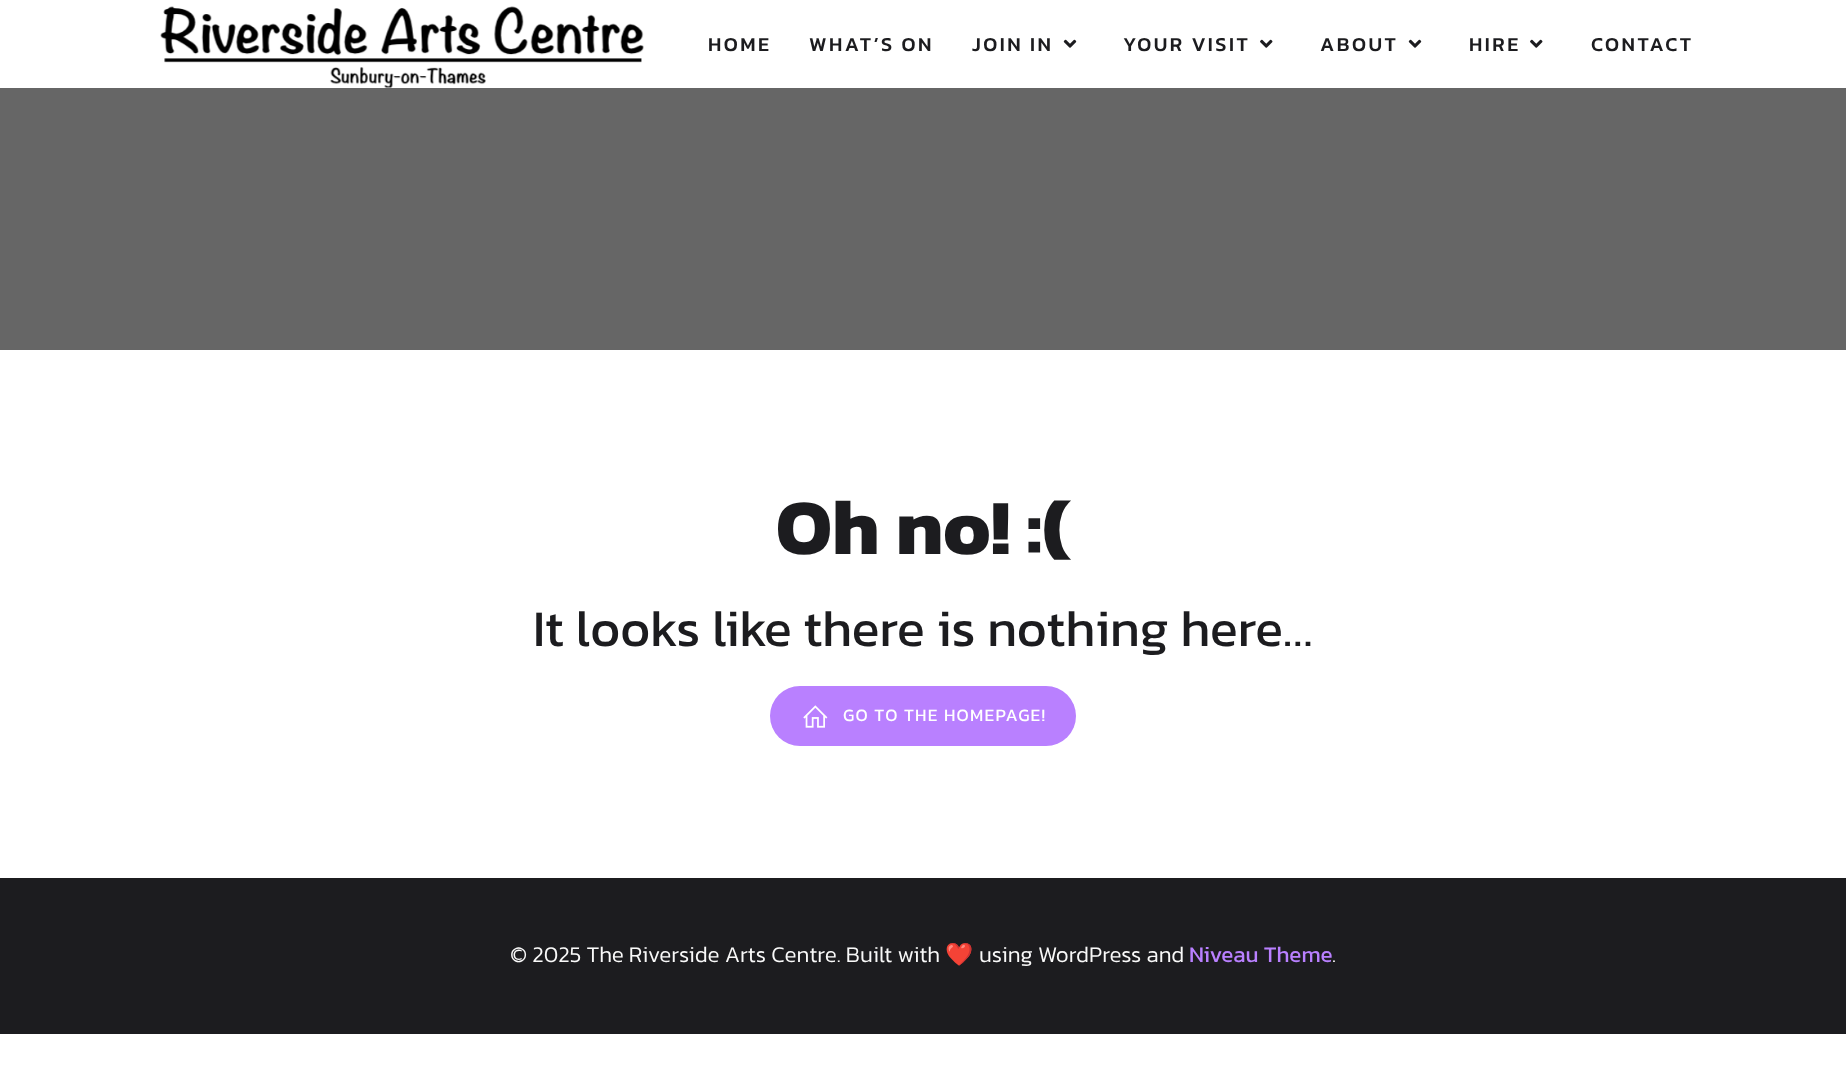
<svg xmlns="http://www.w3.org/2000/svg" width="1846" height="1083">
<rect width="100%" height="100%" fill="#fff"/>
<image x="160" y="6" width="484" height="82" href="media/1.png"/>
<text x="708" y="51" style="font-family:Kanit;font-size:20px;font-weight:500;letter-spacing:2.5px;fill:#1c1c1f">HOME</text>
<text x="809" y="51" style="font-family:Kanit;font-size:20px;font-weight:500;letter-spacing:2.5px;fill:#1c1c1f">WHAT’S ON</text>
<text x="972" y="51" style="font-family:Kanit;font-size:20px;font-weight:500;letter-spacing:2.5px;fill:#1c1c1f">JOIN IN</text>
<image x="1063" y="39" width="14" height="9" href="media/2.png"/>
<text x="1123" y="51" style="font-family:Kanit;font-size:20px;font-weight:500;letter-spacing:2.5px;fill:#1c1c1f">YOUR VISIT</text>
<image x="1260" y="39" width="13" height="9" href="media/3.png"/>
<text x="1320" y="51" style="font-family:Kanit;font-size:20px;font-weight:500;letter-spacing:2.5px;fill:#1c1c1f">ABOUT</text>
<image x="1408" y="39" width="14" height="9" href="media/2.png"/>
<text x="1469" y="51" style="font-family:Kanit;font-size:20px;font-weight:500;letter-spacing:2.5px;fill:#1c1c1f">HIRE</text>
<image x="1530" y="39" width="13" height="9" href="media/3.png"/>
<text x="1591" y="51" style="font-family:Kanit;font-size:20px;font-weight:500;letter-spacing:2.5px;fill:#1c1c1f">CONTACT</text>
<rect y="88" width="1846" height="262" fill="#666"/>
<text x="776" y="554" style="font-family:Kanit;font-size:79px;font-weight:bold;fill:#1c1c1f">Oh no! :(</text>
<text x="533" y="646" style="font-family:Kanit;font-size:51.75px;fill:#1c1c1f">It looks like there is nothing here…</text>
<rect x="770" y="686" width="306" height="60" rx="30" fill="#b980ff"/>
<image x="803" y="705" width="25" height="23" href="media/4.png"/>
<text x="843" y="721" style="font-family:Kanit;font-size:17.5px;letter-spacing:1.25px;fill:#fff">GO TO THE HOMEPAGE!</text>
<rect y="878" width="1846" height="156" fill="#1c1c1f"/>
<text x="510" y="962" style="font-family:Kanit;font-size:22.5px;font-weight:300;fill:#f9f9f9">© 2025 The Riverside Arts Centre. Built with</text>
<text x="945" y="962" style="font-family:Noto Color Emoji;font-size:22.5px;fill:#f9f9f9">❤️</text>
<text x="979" y="962" style="font-family:Kanit;font-size:22.5px;font-weight:300;fill:#f9f9f9">using WordPress and</text>
<text x="1189" y="962" style="font-family:Kanit;font-size:22.5px;fill:#b980ff">Niveau Theme</text>
<text x="1332" y="962" style="font-family:Kanit;font-size:22.5px;font-weight:300;fill:#f9f9f9">.</text>
</svg>
